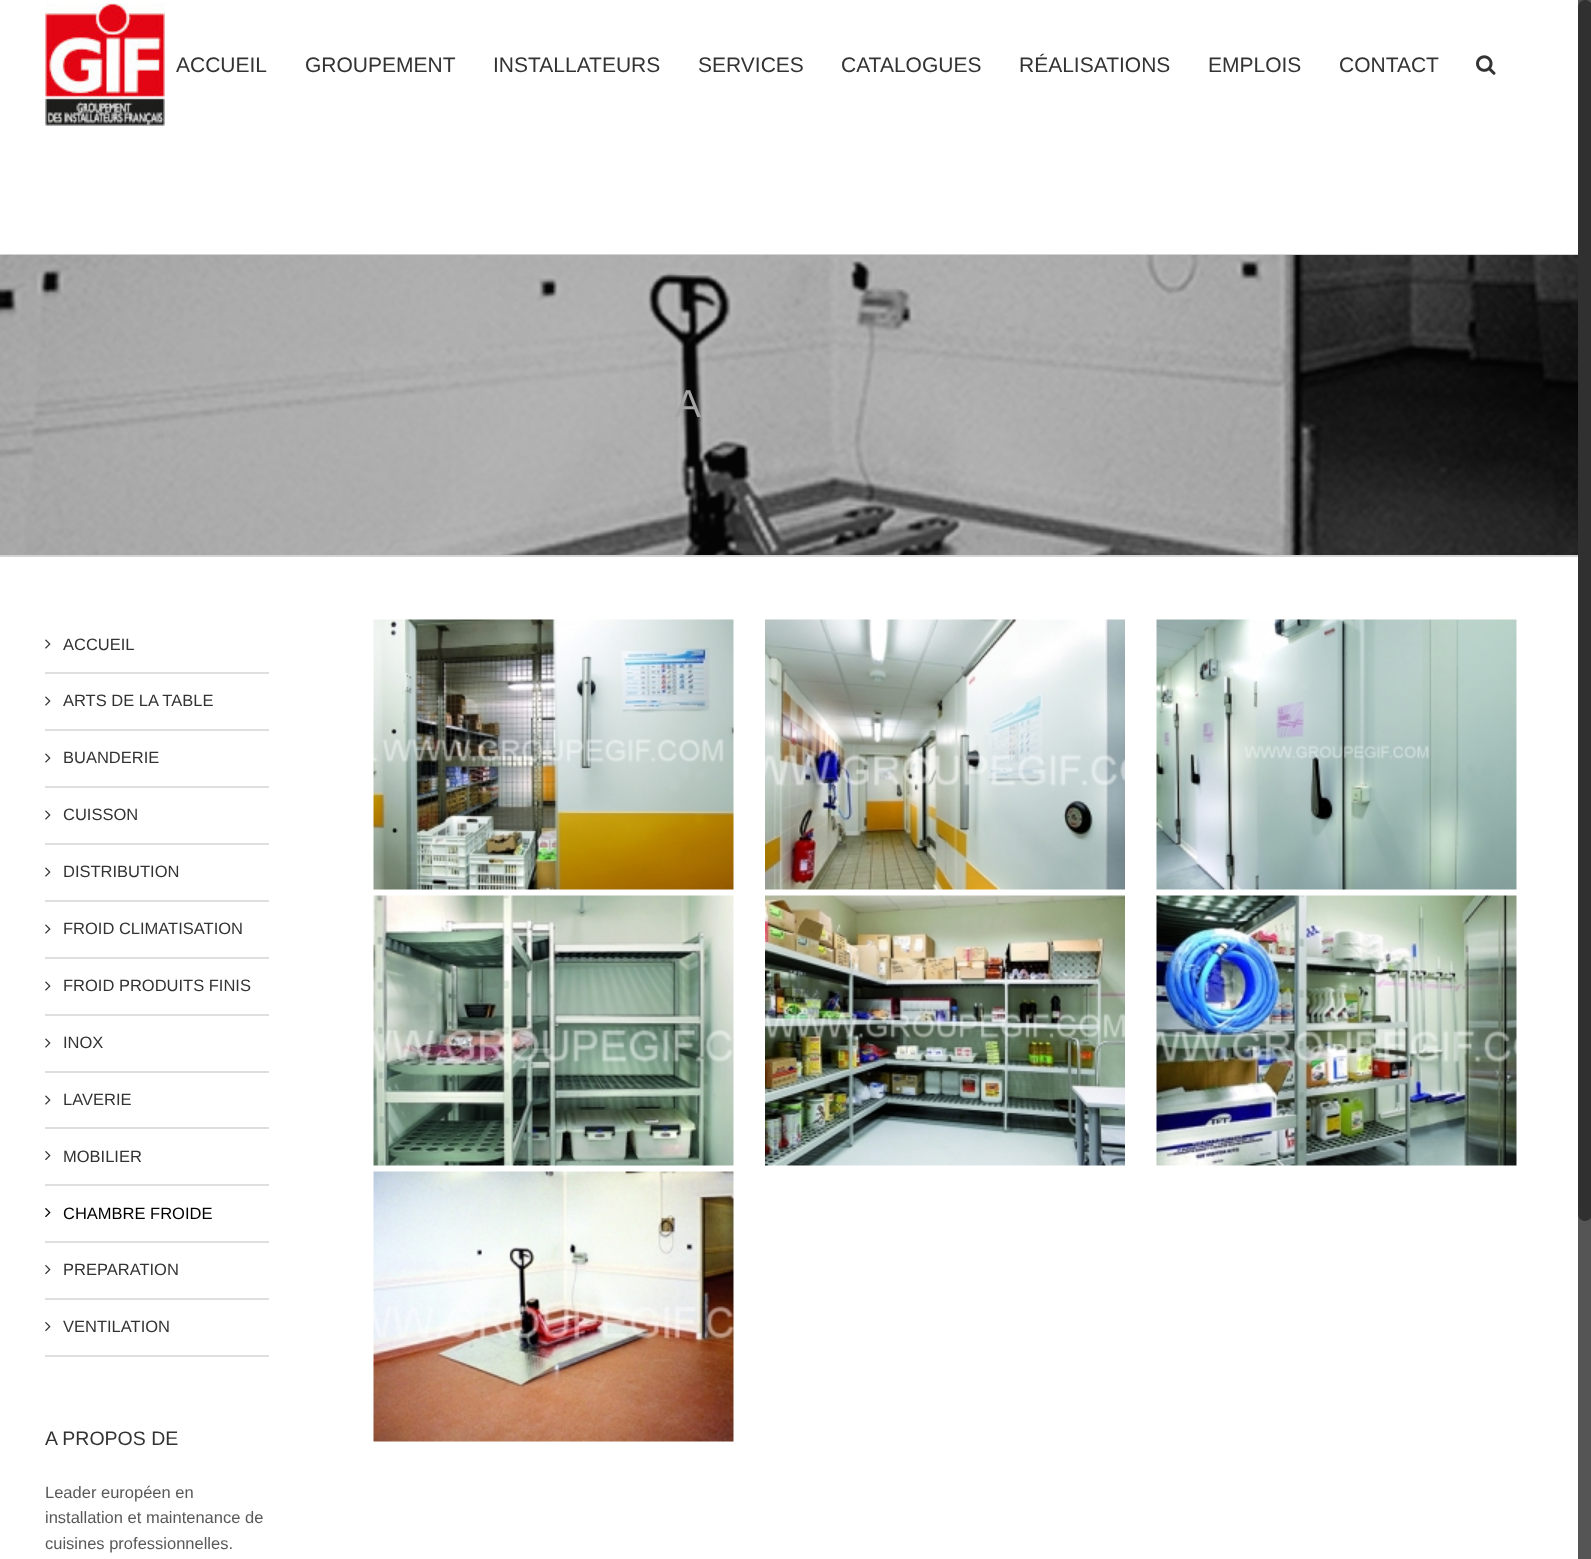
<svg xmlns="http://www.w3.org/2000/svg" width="1591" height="1559">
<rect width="100%" height="100%" fill="#fff"/>
<image x="45" y="3" width="120" height="123" href="media/1.png"/>
<text x="176" y="72" style="font-family:Liberation Sans;font-size:21px;fill:#333">ACCUEIL</text>
<text x="305" y="72" style="font-family:Liberation Sans;font-size:21px;fill:#333">GROUPEMENT</text>
<text x="493" y="72" style="font-family:Liberation Sans;font-size:21px;fill:#333">INSTALLATEURS</text>
<text x="698" y="72" style="font-family:Liberation Sans;font-size:21px;fill:#333">SERVICES</text>
<text x="841" y="72" style="font-family:Liberation Sans;font-size:21px;fill:#333">CATALOGUES</text>
<text x="1019" y="72" style="font-family:Liberation Sans;font-size:21px;fill:#333">RÉALISATIONS</text>
<text x="1208" y="72" style="font-family:Liberation Sans;font-size:21px;fill:#333">EMPLOIS</text>
<text x="1339" y="72" style="font-family:Liberation Sans;font-size:21px;fill:#333">CONTACT</text>
<image x="1476" y="55" width="20" height="20" href="media/2.png"/>
<rect y="254" width="1578" height="2" fill="#d2d3d4"/>
<rect y="555" width="1578" height="2" fill="#d2d3d4"/>
<image x="0" y="255" width="1578" height="300" href="media/3.png"/>
<text x="675" y="417" style="font-family:Liberation Sans;font-size:39px;fill:#a5a5a5">A</text>
<rect x="45" y="672" width="224" height="2" fill="#e0dede"/>
<image x="45" y="639" width="6" height="10" href="media/4.png"/>
<text x="63" y="650" style="font-family:Liberation Sans;font-size:16.5px;fill:#333">ACCUEIL</text>
<rect x="45" y="729" width="224" height="2" fill="#e0dede"/>
<image x="45" y="696" width="6" height="10" href="media/4.png"/>
<text x="63" y="706" style="font-family:Liberation Sans;font-size:16.5px;fill:#333">ARTS DE LA TABLE</text>
<rect x="45" y="786" width="224" height="2" fill="#e0dede"/>
<image x="45" y="753" width="6" height="10" href="media/4.png"/>
<text x="63" y="763" style="font-family:Liberation Sans;font-size:16.5px;fill:#333">BUANDERIE</text>
<rect x="45" y="843" width="224" height="2" fill="#e0dede"/>
<image x="45" y="810" width="6" height="10" href="media/4.png"/>
<text x="63" y="820" style="font-family:Liberation Sans;font-size:16.5px;fill:#333">CUISSON</text>
<rect x="45" y="900" width="224" height="2" fill="#e0dede"/>
<image x="45" y="867" width="6" height="10" href="media/4.png"/>
<text x="63" y="877" style="font-family:Liberation Sans;font-size:16.5px;fill:#333">DISTRIBUTION</text>
<rect x="45" y="957" width="224" height="2" fill="#e0dede"/>
<image x="45" y="924" width="6" height="10" href="media/4.png"/>
<text x="63" y="934" style="font-family:Liberation Sans;font-size:16.5px;fill:#333">FROID CLIMATISATION</text>
<rect x="45" y="1014" width="224" height="2" fill="#e0dede"/>
<image x="45" y="981" width="6" height="10" href="media/4.png"/>
<text x="63" y="991" style="font-family:Liberation Sans;font-size:16.5px;fill:#333">FROID PRODUITS FINIS</text>
<rect x="45" y="1071" width="224" height="2" fill="#e0dede"/>
<image x="45" y="1038" width="6" height="10" href="media/4.png"/>
<text x="63" y="1048" style="font-family:Liberation Sans;font-size:16.5px;fill:#333">INOX</text>
<rect x="45" y="1127" width="224" height="2" fill="#e0dede"/>
<image x="45" y="1095" width="6" height="10" href="media/4.png"/>
<text x="63" y="1105" style="font-family:Liberation Sans;font-size:16.5px;fill:#333">LAVERIE</text>
<rect x="45" y="1184" width="224" height="2" fill="#e0dede"/>
<image x="45" y="1151" width="6" height="10" href="media/5.png"/>
<text x="63" y="1162" style="font-family:Liberation Sans;font-size:16.5px;fill:#333">MOBILIER</text>
<rect x="45" y="1241" width="224" height="2" fill="#e0dede"/>
<image x="45" y="1208" width="6" height="10" href="media/6.png"/>
<text x="63" y="1219" style="font-family:Liberation Sans;font-size:16.5px;fill:#000">CHAMBRE FROIDE</text>
<rect x="45" y="1298" width="224" height="2" fill="#e0dede"/>
<image x="45" y="1265" width="6" height="10" href="media/5.png"/>
<text x="63" y="1275" style="font-family:Liberation Sans;font-size:16.5px;fill:#333">PREPARATION</text>
<rect x="45" y="1355" width="224" height="2" fill="#e0dede"/>
<image x="45" y="1322" width="6" height="10" href="media/5.png"/>
<text x="63" y="1332" style="font-family:Liberation Sans;font-size:16.5px;fill:#333">VENTILATION</text>
<text x="45" y="1445" style="font-family:Liberation Sans;font-size:19.5px;fill:#333">A PROPOS DE</text>
<text x="45" y="1498" style="font-family:Liberation Sans;font-size:16.5px;fill:#595959">Leader européen en</text>
<text x="45" y="1523" style="font-family:Liberation Sans;font-size:16.5px;fill:#595959">installation et maintenance de</text>
<text x="45" y="1549" style="font-family:Liberation Sans;font-size:16.5px;fill:#595959">cuisines professionnelles.</text>
<image x="373" y="619" width="361" height="271" href="media/7.png"/>
<image x="765" y="619" width="360" height="271" href="media/8.png"/>
<image x="1156" y="619" width="361" height="271" href="media/9.png"/>
<image x="373" y="895" width="361" height="271" href="media/10.png"/>
<image x="765" y="895" width="360" height="271" href="media/11.png"/>
<image x="1156" y="895" width="361" height="271" href="media/12.png"/>
<image x="373" y="1171" width="361" height="271" href="media/13.png"/>
<rect x="1578" width="13" height="1559" fill="#555"/>
<rect x="1578" width="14" height="1221" rx="7" fill="#303030"/>
</svg>
